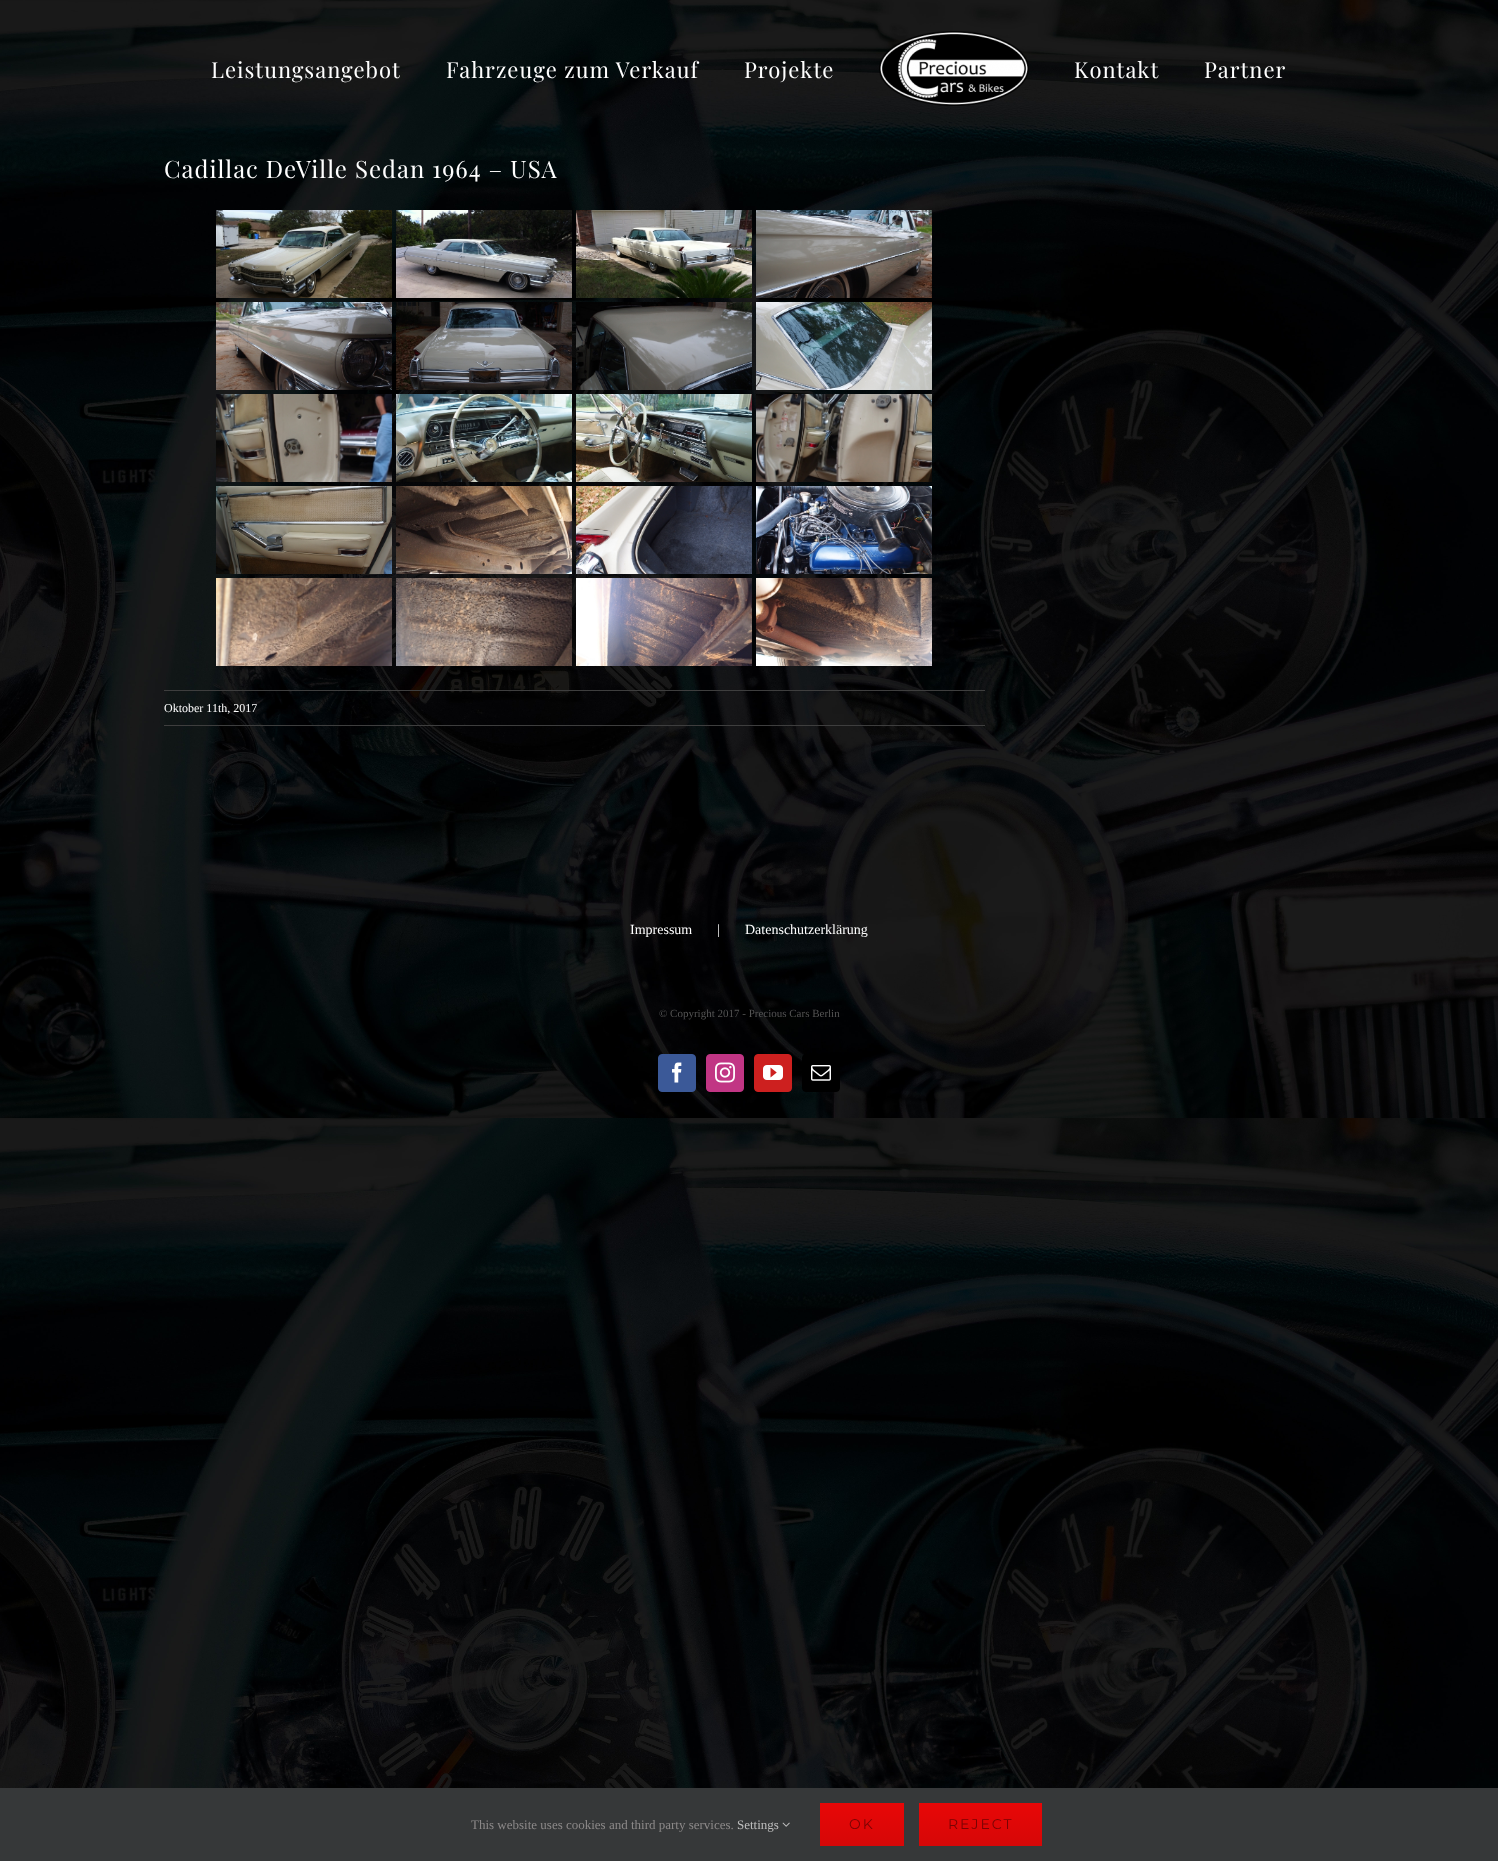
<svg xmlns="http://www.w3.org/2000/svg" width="1498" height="1861">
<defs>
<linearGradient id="g1" gradientUnits="userSpaceOnUse" x1="862" y1="1803" x2="862" y2="1846"><stop offset="0" stop-color="#e80707"/><stop offset="1" stop-color="#d60707"/></linearGradient>
<linearGradient id="g2" gradientUnits="userSpaceOnUse" x1="981" y1="1803" x2="981" y2="1846"><stop offset="0" stop-color="#e80707"/><stop offset="1" stop-color="#d60707"/></linearGradient>
</defs>
<rect width="100%" height="100%" fill="#fff"/>
<image x="0" y="0" width="1498" height="1788" href="media/1.png"/>
<text x="211" y="78" style="font-family:Playfair Display;font-size:22px;letter-spacing:1px;fill:#fff">Leistungsangebot</text>
<text x="446" y="78" style="font-family:Playfair Display;font-size:22px;letter-spacing:1px;fill:#fff">Fahrzeuge zum Verkauf</text>
<text x="744" y="78" style="font-family:Playfair Display;font-size:22px;letter-spacing:1px;fill:#fff">Projekte</text>
<image x="879" y="31" width="150" height="75" href="media/2.png"/>
<text x="1074" y="78" style="font-family:Playfair Display;font-size:22px;letter-spacing:1px;fill:#fff">Kontakt</text>
<text x="1204" y="78" style="font-family:Playfair Display;font-size:22px;letter-spacing:1px;fill:#fff">Partner</text>
<text x="164" y="178" style="font-family:Playfair Display;font-size:24px;letter-spacing:1px;fill:#fff">Cadillac DeVille Sedan 1964 – USA</text>
<image x="216" y="210" width="176" height="88" href="media/3.png"/>
<image x="396" y="210" width="176" height="88" href="media/4.png"/>
<image x="576" y="210" width="176" height="88" href="media/5.png"/>
<image x="756" y="210" width="176" height="88" href="media/6.png"/>
<image x="216" y="302" width="176" height="88" href="media/7.png"/>
<image x="396" y="302" width="176" height="88" href="media/8.png"/>
<image x="576" y="302" width="176" height="88" href="media/9.png"/>
<image x="756" y="302" width="176" height="88" href="media/10.png"/>
<image x="216" y="394" width="176" height="88" href="media/11.png"/>
<image x="396" y="394" width="176" height="88" href="media/12.png"/>
<image x="576" y="394" width="176" height="88" href="media/13.png"/>
<image x="756" y="394" width="176" height="88" href="media/14.png"/>
<image x="216" y="486" width="176" height="88" href="media/15.png"/>
<image x="396" y="486" width="176" height="88" href="media/16.png"/>
<image x="576" y="486" width="176" height="88" href="media/17.png"/>
<image x="756" y="486" width="176" height="88" href="media/18.png"/>
<image x="216" y="578" width="176" height="88" href="media/19.png"/>
<image x="396" y="578" width="176" height="88" href="media/20.png"/>
<image x="576" y="578" width="176" height="88" href="media/21.png"/>
<image x="756" y="578" width="176" height="88" href="media/22.png"/>
<rect x="164" y="690" width="821" height="1" fill="#3e3e3e"/>
<rect x="164" y="725" width="821" height="1" fill="#3e3e3e"/>
<text x="164" y="712" style="font-family:Liberation Serif;font-size:12px;fill:#fff">Oktober 11th, 2017</text>
<text x="630" y="934" style="font-family:Liberation Serif;font-size:14px;fill:#fff">Impressum</text>
<text x="717" y="934" style="font-family:Liberation Serif;font-size:14px;fill:#fff">|</text>
<text x="745" y="934" style="font-family:Liberation Serif;font-size:14px;fill:#fff">Datenschutzerklärung</text>
<text x="659" y="1017" style="font-family:Liberation Serif;font-size:11px;fill:#545454">© Copyright 2017 - Precious Cars Berlin</text>
<rect x="658.5" y="1054.5" width="37" height="37" rx="3.5" fill="#3b5998" stroke="#3b5998"/>
<image x="672" y="1062" width="10" height="21" href="media/23.png"/>
<rect x="706.5" y="1054.5" width="37" height="37" rx="3.5" fill="#c13584" stroke="#c13584"/>
<image x="715" y="1062" width="20" height="21" href="media/24.png"/>
<rect x="754.5" y="1054.5" width="37" height="37" rx="3.5" fill="#cd201f" stroke="#cd201f"/>
<image x="763" y="1065" width="20" height="15" href="media/25.png"/>
<rect x="802.5" y="1054.5" width="37" height="37" rx="3.5" fill="#000" stroke="#000"/>
<image x="811" y="1065" width="20" height="16" href="media/26.png"/>
<rect y="1788" width="1498" height="73" fill="#363839"/>
<text x="471" y="1829" style="font-family:Liberation Serif;font-size:13px;fill:#8c8989">This website uses cookies and third party services.</text>
<text x="737" y="1829" style="font-family:Liberation Serif;font-size:13px;fill:#bfbfbf">Settings</text>
<image x="782" y="1822" width="8" height="5" href="media/27.png"/>
<rect x="820" y="1803" width="84" height="43" fill="url(#g1)"/>
<text x="849" y="1829" style="font-family:Montserrat;font-size:14px;letter-spacing:2px;fill:#780404">OK</text>
<rect x="919" y="1803" width="123" height="43" fill="url(#g2)"/>
<text x="948" y="1829" style="font-family:Montserrat;font-size:14px;letter-spacing:2px;fill:#780404">REJECT</text>
</svg>
